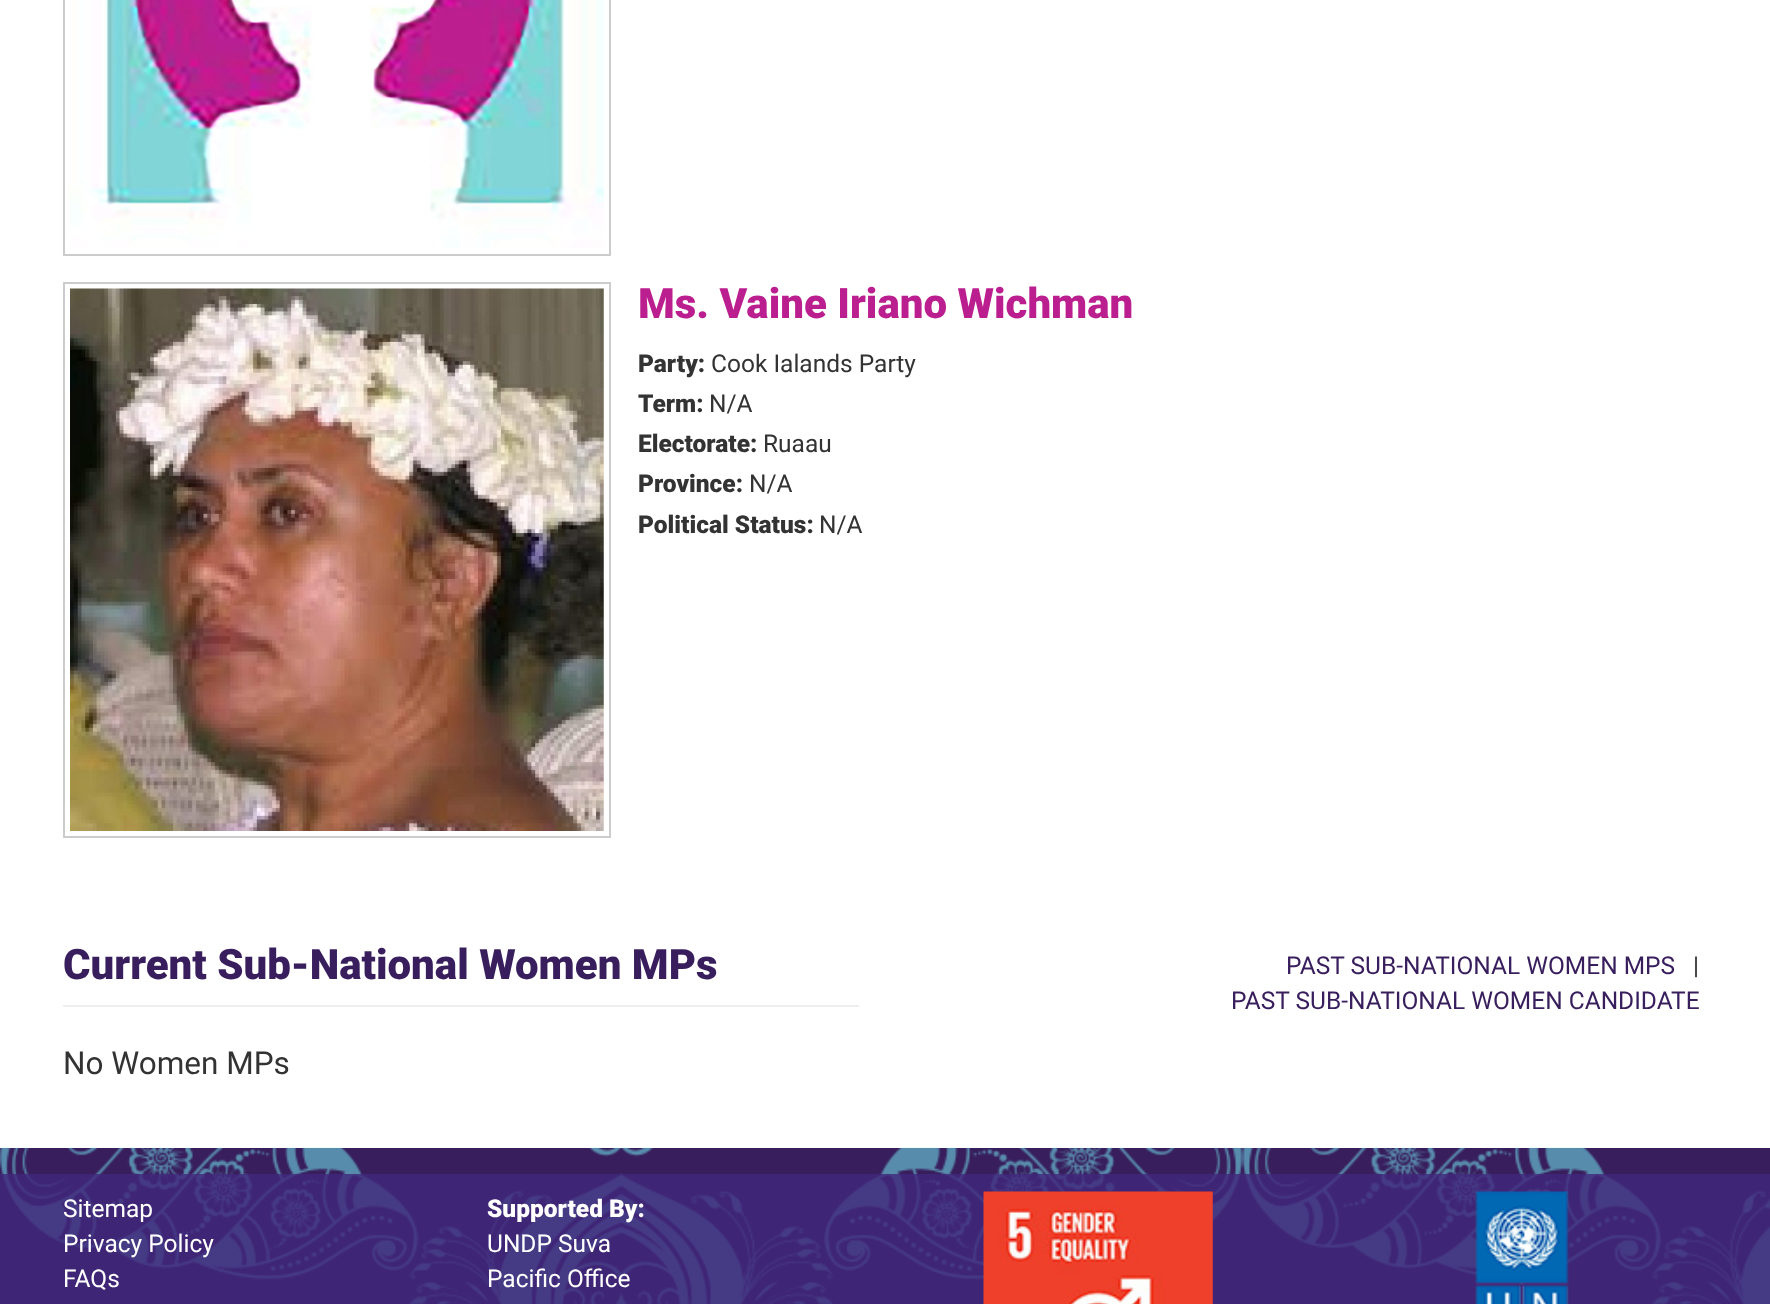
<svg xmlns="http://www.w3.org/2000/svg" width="1770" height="1304">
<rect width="100%" height="100%" fill="#381e5d"/>
<rect width="1770" height="1148" fill="#fff"/>
<rect x="64" y="-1" width="546" height="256" fill="none" stroke="#ccc" stroke-width="2"/>
<image x="70" y="0" width="534" height="248" href="media/1.png"/>
<rect x="64" y="283" width="546" height="554" fill="none" stroke="#ccc" stroke-width="2"/>
<image x="70" y="288" width="534" height="543" href="media/2.png"/>
<text x="638" y="318" style="font-family:Roboto;font-size:42px;font-weight:900;fill:#bb1e8e">Ms. Vaine Iriano Wichman</text>
<text x="638" y="372" style="font-family:Roboto;font-size:24.5px;font-weight:900;fill:#333">Party:</text>
<text x="711" y="372" style="font-family:Roboto;font-size:24.5px;fill:#333">Cook Ialands Party</text>
<text x="638" y="412" style="font-family:Roboto;font-size:24.5px;font-weight:900;fill:#333">Term:</text>
<text x="709" y="412" style="font-family:Roboto;font-size:24.5px;fill:#333">N/A</text>
<text x="638" y="452" style="font-family:Roboto;font-size:24.5px;font-weight:900;fill:#333">Electorate:</text>
<text x="763" y="452" style="font-family:Roboto;font-size:24.5px;fill:#333">Ruaau</text>
<text x="638" y="492" style="font-family:Roboto;font-size:24.5px;font-weight:900;fill:#333">Province:</text>
<text x="749" y="492" style="font-family:Roboto;font-size:24.5px;fill:#333">N/A</text>
<text x="638" y="533" style="font-family:Roboto;font-size:24.5px;font-weight:900;fill:#333">Political Status:</text>
<text x="819" y="533" style="font-family:Roboto;font-size:24.5px;fill:#333">N/A</text>
<rect x="63" y="1005" width="796" height="2" fill="#eee"/>
<text x="63" y="979" style="font-family:Roboto;font-size:42px;font-weight:900;fill:#381e5d">Current Sub-National Women MPs</text>
<text x="1286" y="974" style="font-family:Roboto;font-size:24.5px;fill:#381e5d">PAST SUB-NATIONAL WOMEN MPS</text>
<text x="1693" y="974" style="font-family:Roboto;font-size:24.5px;fill:#333">|</text>
<text x="1231" y="1009" style="font-family:Roboto;font-size:24.5px;fill:#381e5d">PAST SUB-NATIONAL WOMEN CANDIDATE</text>
<text x="63" y="1074" style="font-family:Roboto;font-size:31.5px;fill:#333">No Women MPs</text>
<image x="0" y="1147" width="1770" height="157" href="media/3.png"/>
<rect y="1174" width="1770" height="130" fill="#41277ccc"/>
<text x="63" y="1217" style="font-family:Roboto;font-size:24.5px;fill:#fff">Sitemap</text>
<text x="63" y="1252" style="font-family:Roboto;font-size:24.5px;fill:#fff">Privacy Policy</text>
<text x="63" y="1287" style="font-family:Roboto;font-size:24.5px;fill:#fff">FAQs</text>
<text x="487" y="1217" style="font-family:Roboto;font-size:24.5px;font-weight:900;fill:#fff">Supported By:</text>
<text x="487" y="1252" style="font-family:Roboto;font-size:24.5px;fill:#fff">UNDP Suva</text>
<text x="487" y="1287" style="font-family:Roboto;font-size:24.5px;fill:#fff">Pacific Office</text>
<image x="983" y="1191" width="230" height="113" href="media/4.png"/>
<image x="1475" y="1191" width="94" height="113" href="media/5.png"/>
</svg>
